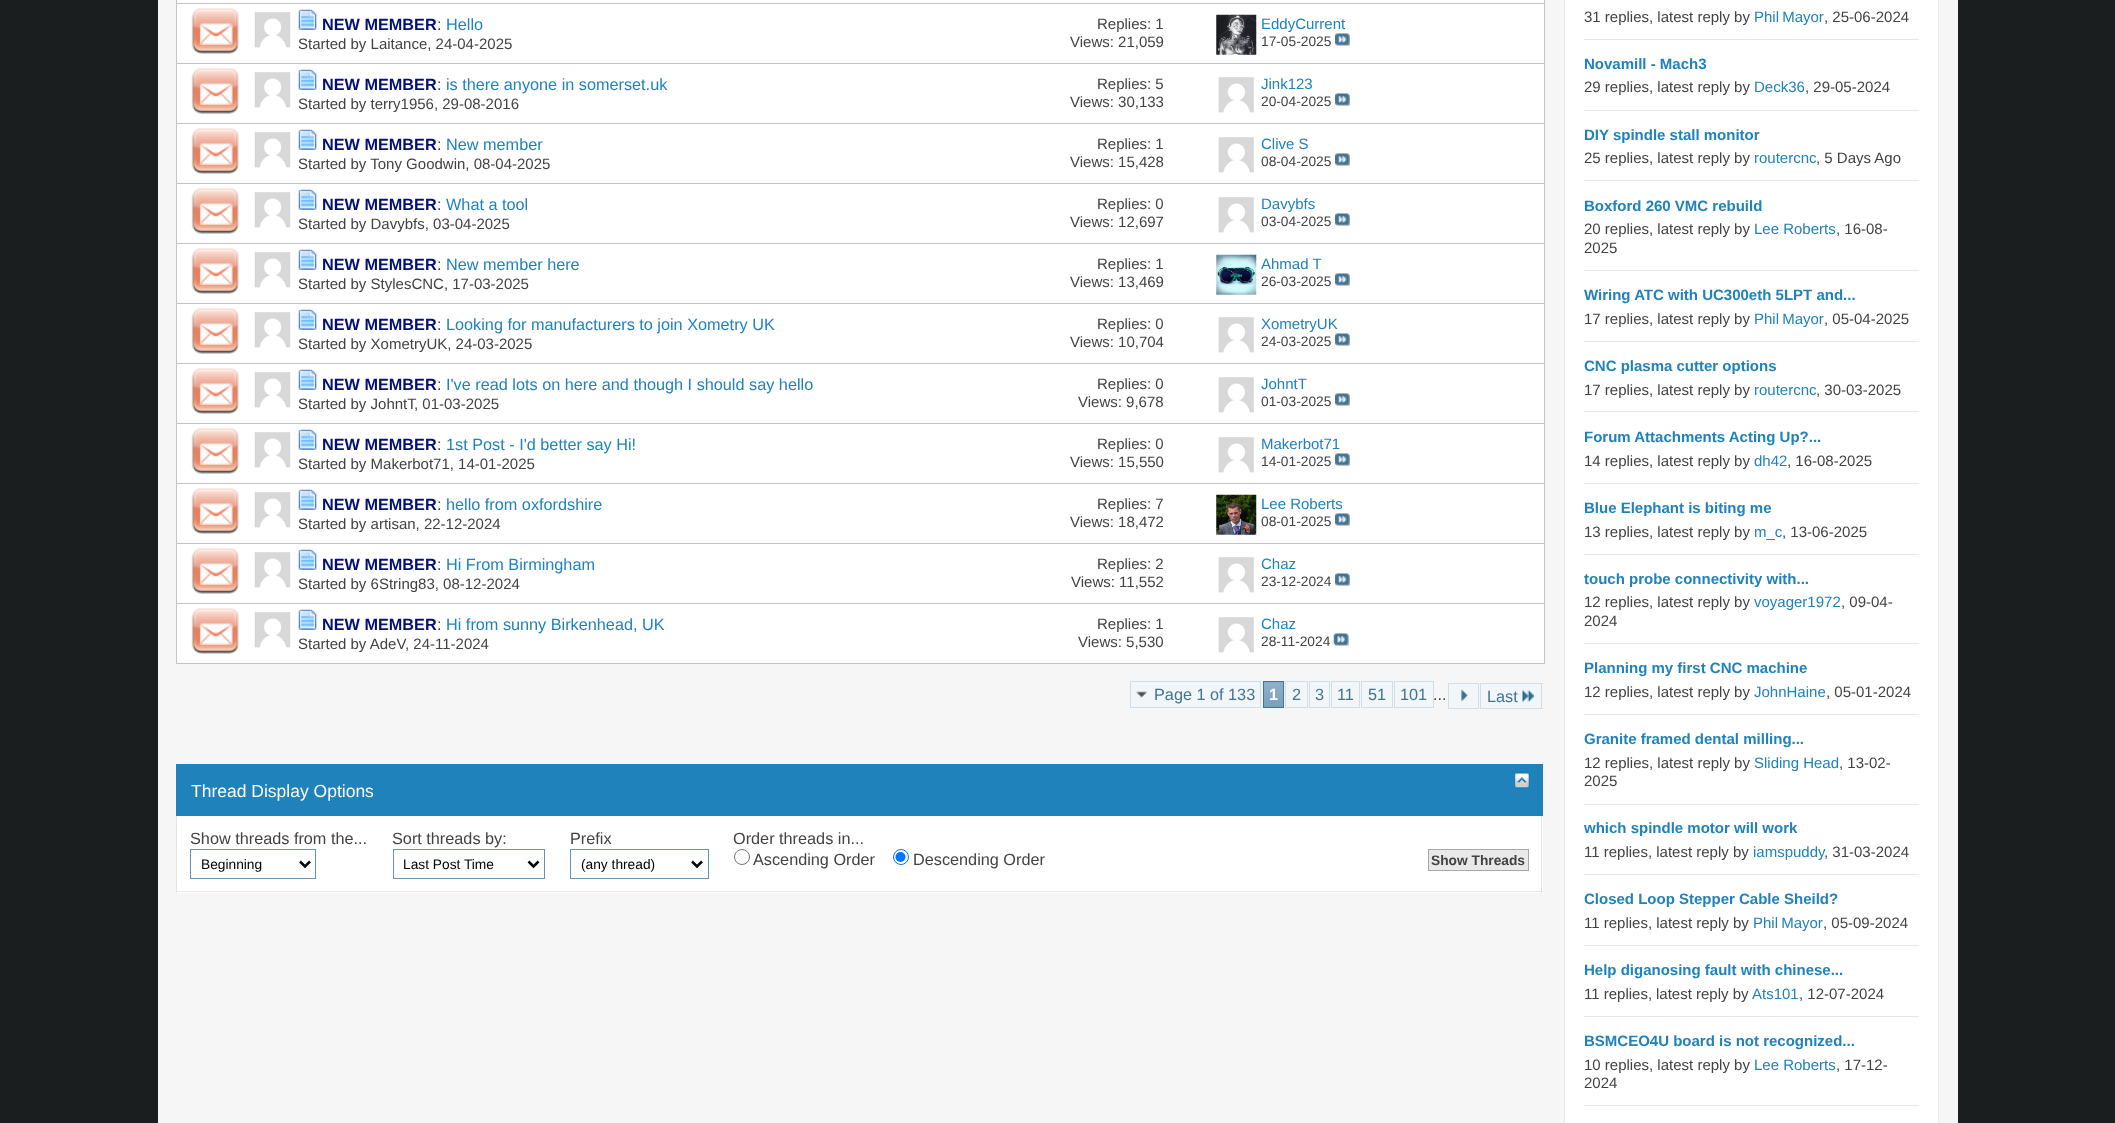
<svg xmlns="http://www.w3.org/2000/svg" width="2115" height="1123">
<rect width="100%" height="100%" fill="#1b1e1f"/>
<rect x="158" width="1800" height="1123" fill="#f6f6f6"/>
<rect x="176" width="1369" height="3" fill="#fff"/>
<rect x="1544" width="1" height="664" fill="#c4c4c4"/>
<rect x="176" y="3" width="1369" height="1" fill="#c4c4c4"/>
<rect x="176" width="1" height="4" fill="#c4c4c4"/>
<rect x="177" y="4" width="1367" height="59" fill="#fff"/>
<rect x="176" y="63" width="1369" height="1" fill="#c4c4c4"/>
<rect x="176" y="4" width="1" height="60" fill="#c4c4c4"/>
<image x="191" y="8" width="48" height="46" href="media/1.png"/>
<image x="254" y="12" width="37" height="36" href="media/2.png"/>
<image x="298" y="9" width="19" height="21" href="media/3.png"/>
<text x="322" y="30" style="font-family:Liberation Sans;font-size:16.25px;font-weight:bold;fill:#031073">NEW MEMBER</text>
<text x="437" y="30" style="font-family:Liberation Sans;font-size:16.25px;fill:#424242">:</text>
<text x="446" y="30" style="font-family:Liberation Sans;font-size:16.25px;fill:#1f82bb">Hello</text>
<text x="298" y="49" style="font-family:Liberation Sans;font-size:15px;fill:#424242">Started by Laitance, 24-04-2025</text>
<text x="1097" y="29" style="font-family:Liberation Sans;font-size:15px;fill:#424242">Replies: 1</text>
<text x="1070" y="47" style="font-family:Liberation Sans;font-size:15px;fill:#424242">Views: 21,059</text>
<image x="1216" y="14" width="41" height="41" href="media/4.png"/>
<text x="1261" y="29" style="font-family:Liberation Sans;font-size:15px;fill:#1f82bb">EddyCurrent</text>
<text x="1261" y="46" style="font-family:Liberation Sans;font-size:13.75px;fill:#424242">17-05-2025</text>
<image x="1335" y="33" width="15" height="13" href="media/5.png"/>
<rect x="177" y="64" width="1367" height="59" fill="#fff"/>
<rect x="176" y="123" width="1369" height="1" fill="#c4c4c4"/>
<rect x="176" y="64" width="1" height="60" fill="#c4c4c4"/>
<image x="191" y="68" width="48" height="46" href="media/6.png"/>
<image x="254" y="72" width="37" height="36" href="media/2.png"/>
<image x="298" y="69" width="19" height="21" href="media/7.png"/>
<text x="322" y="90" style="font-family:Liberation Sans;font-size:16.25px;font-weight:bold;fill:#031073">NEW MEMBER</text>
<text x="437" y="90" style="font-family:Liberation Sans;font-size:16.25px;fill:#424242">:</text>
<text x="446" y="90" style="font-family:Liberation Sans;font-size:16.25px;fill:#1f82bb">is there anyone in somerset.uk</text>
<text x="298" y="109" style="font-family:Liberation Sans;font-size:15px;fill:#424242">Started by terry1956, 29-08-2016</text>
<text x="1097" y="89" style="font-family:Liberation Sans;font-size:15px;fill:#424242">Replies: 5</text>
<text x="1070" y="107" style="font-family:Liberation Sans;font-size:15px;fill:#424242">Views: 30,133</text>
<image x="1218" y="77" width="36" height="36" href="media/8.png"/>
<text x="1261" y="89" style="font-family:Liberation Sans;font-size:15px;fill:#1f82bb">Jink123</text>
<text x="1261" y="106" style="font-family:Liberation Sans;font-size:13.75px;fill:#424242">20-04-2025</text>
<image x="1335" y="93" width="15" height="13" href="media/5.png"/>
<rect x="177" y="124" width="1367" height="59" fill="#fff"/>
<rect x="176" y="183" width="1369" height="1" fill="#c4c4c4"/>
<rect x="176" y="124" width="1" height="60" fill="#c4c4c4"/>
<image x="191" y="128" width="48" height="46" href="media/1.png"/>
<image x="254" y="132" width="37" height="36" href="media/2.png"/>
<image x="298" y="129" width="19" height="21" href="media/3.png"/>
<text x="322" y="150" style="font-family:Liberation Sans;font-size:16.25px;font-weight:bold;fill:#031073">NEW MEMBER</text>
<text x="437" y="150" style="font-family:Liberation Sans;font-size:16.25px;fill:#424242">:</text>
<text x="446" y="150" style="font-family:Liberation Sans;font-size:16.25px;fill:#1f82bb">New member</text>
<text x="298" y="169" style="font-family:Liberation Sans;font-size:15px;fill:#424242">Started by Tony Goodwin, 08-04-2025</text>
<text x="1097" y="149" style="font-family:Liberation Sans;font-size:15px;fill:#424242">Replies: 1</text>
<text x="1070" y="167" style="font-family:Liberation Sans;font-size:15px;fill:#424242">Views: 15,428</text>
<image x="1218" y="137" width="36" height="36" href="media/8.png"/>
<text x="1261" y="149" style="font-family:Liberation Sans;font-size:15px;fill:#1f82bb">Clive S</text>
<text x="1261" y="166" style="font-family:Liberation Sans;font-size:13.75px;fill:#424242">08-04-2025</text>
<image x="1335" y="153" width="15" height="13" href="media/5.png"/>
<rect x="177" y="184" width="1367" height="59" fill="#fff"/>
<rect x="176" y="243" width="1369" height="1" fill="#c4c4c4"/>
<rect x="176" y="184" width="1" height="60" fill="#c4c4c4"/>
<image x="191" y="188" width="48" height="46" href="media/1.png"/>
<image x="254" y="192" width="37" height="36" href="media/2.png"/>
<image x="298" y="189" width="19" height="21" href="media/3.png"/>
<text x="322" y="210" style="font-family:Liberation Sans;font-size:16.25px;font-weight:bold;fill:#031073">NEW MEMBER</text>
<text x="437" y="210" style="font-family:Liberation Sans;font-size:16.25px;fill:#424242">:</text>
<text x="446" y="210" style="font-family:Liberation Sans;font-size:16.25px;fill:#1f82bb">What a tool</text>
<text x="298" y="229" style="font-family:Liberation Sans;font-size:15px;fill:#424242">Started by Davybfs, 03-04-2025</text>
<text x="1097" y="209" style="font-family:Liberation Sans;font-size:15px;fill:#424242">Replies: 0</text>
<text x="1070" y="227" style="font-family:Liberation Sans;font-size:15px;fill:#424242">Views: 12,697</text>
<image x="1218" y="197" width="36" height="36" href="media/8.png"/>
<text x="1261" y="209" style="font-family:Liberation Sans;font-size:15px;fill:#1f82bb">Davybfs</text>
<text x="1261" y="226" style="font-family:Liberation Sans;font-size:13.75px;fill:#424242">03-04-2025</text>
<image x="1335" y="213" width="15" height="13" href="media/5.png"/>
<rect x="177" y="244" width="1367" height="59" fill="#fff"/>
<rect x="176" y="303" width="1369" height="1" fill="#c4c4c4"/>
<rect x="176" y="244" width="1" height="60" fill="#c4c4c4"/>
<image x="191" y="248" width="48" height="46" href="media/1.png"/>
<image x="254" y="252" width="37" height="36" href="media/2.png"/>
<image x="298" y="249" width="19" height="21" href="media/3.png"/>
<text x="322" y="270" style="font-family:Liberation Sans;font-size:16.25px;font-weight:bold;fill:#031073">NEW MEMBER</text>
<text x="437" y="270" style="font-family:Liberation Sans;font-size:16.25px;fill:#424242">:</text>
<text x="446" y="270" style="font-family:Liberation Sans;font-size:16.25px;fill:#1f82bb">New member here</text>
<text x="298" y="289" style="font-family:Liberation Sans;font-size:15px;fill:#424242">Started by StylesCNC, 17-03-2025</text>
<text x="1097" y="269" style="font-family:Liberation Sans;font-size:15px;fill:#424242">Replies: 1</text>
<text x="1070" y="287" style="font-family:Liberation Sans;font-size:15px;fill:#424242">Views: 13,469</text>
<image x="1216" y="254" width="41" height="41" href="media/9.png"/>
<text x="1261" y="269" style="font-family:Liberation Sans;font-size:15px;fill:#1f82bb">Ahmad T</text>
<text x="1261" y="286" style="font-family:Liberation Sans;font-size:13.75px;fill:#424242">26-03-2025</text>
<image x="1335" y="273" width="15" height="13" href="media/5.png"/>
<rect x="177" y="304" width="1367" height="59" fill="#fff"/>
<rect x="176" y="363" width="1369" height="1" fill="#c4c4c4"/>
<rect x="176" y="304" width="1" height="60" fill="#c4c4c4"/>
<image x="191" y="308" width="48" height="46" href="media/1.png"/>
<image x="254" y="312" width="37" height="36" href="media/2.png"/>
<image x="298" y="309" width="19" height="21" href="media/3.png"/>
<text x="322" y="330" style="font-family:Liberation Sans;font-size:16.25px;font-weight:bold;fill:#031073">NEW MEMBER</text>
<text x="437" y="330" style="font-family:Liberation Sans;font-size:16.25px;fill:#424242">:</text>
<text x="446" y="330" style="font-family:Liberation Sans;font-size:16.25px;fill:#1f82bb">Looking for manufacturers to join Xometry UK</text>
<text x="298" y="349" style="font-family:Liberation Sans;font-size:15px;fill:#424242">Started by XometryUK, 24-03-2025</text>
<text x="1097" y="329" style="font-family:Liberation Sans;font-size:15px;fill:#424242">Replies: 0</text>
<text x="1070" y="347" style="font-family:Liberation Sans;font-size:15px;fill:#424242">Views: 10,704</text>
<image x="1218" y="317" width="36" height="36" href="media/8.png"/>
<text x="1261" y="329" style="font-family:Liberation Sans;font-size:15px;fill:#1f82bb">XometryUK</text>
<text x="1261" y="346" style="font-family:Liberation Sans;font-size:13.75px;fill:#424242">24-03-2025</text>
<image x="1335" y="333" width="15" height="13" href="media/5.png"/>
<rect x="177" y="364" width="1367" height="59" fill="#fff"/>
<rect x="176" y="423" width="1369" height="1" fill="#c4c4c4"/>
<rect x="176" y="364" width="1" height="60" fill="#c4c4c4"/>
<image x="191" y="368" width="48" height="46" href="media/1.png"/>
<image x="254" y="372" width="37" height="36" href="media/2.png"/>
<image x="298" y="369" width="19" height="21" href="media/3.png"/>
<text x="322" y="390" style="font-family:Liberation Sans;font-size:16.25px;font-weight:bold;fill:#031073">NEW MEMBER</text>
<text x="437" y="390" style="font-family:Liberation Sans;font-size:16.25px;fill:#424242">:</text>
<text x="446" y="390" style="font-family:Liberation Sans;font-size:16.25px;fill:#1f82bb">I've read lots on here and though I should say hello</text>
<text x="298" y="409" style="font-family:Liberation Sans;font-size:15px;fill:#424242">Started by JohntT</text>
<text x="414" y="409" style="font-family:Liberation Sans;font-size:15px;fill:#424242">, 01-03-2025</text>
<text x="1097" y="389" style="font-family:Liberation Sans;font-size:15px;fill:#424242">Replies: 0</text>
<text x="1078" y="407" style="font-family:Liberation Sans;font-size:15px;fill:#424242">Views: 9,678</text>
<image x="1218" y="377" width="36" height="36" href="media/8.png"/>
<text x="1261" y="389" style="font-family:Liberation Sans;font-size:15px;fill:#1f82bb">JohntT</text>
<text x="1261" y="406" style="font-family:Liberation Sans;font-size:13.75px;fill:#424242">01-03-2025</text>
<image x="1335" y="393" width="15" height="13" href="media/5.png"/>
<rect x="177" y="424" width="1367" height="59" fill="#fff"/>
<rect x="176" y="483" width="1369" height="1" fill="#c4c4c4"/>
<rect x="176" y="424" width="1" height="60" fill="#c4c4c4"/>
<image x="191" y="428" width="48" height="46" href="media/1.png"/>
<image x="254" y="432" width="37" height="36" href="media/2.png"/>
<image x="298" y="429" width="19" height="21" href="media/3.png"/>
<text x="322" y="450" style="font-family:Liberation Sans;font-size:16.25px;font-weight:bold;fill:#031073">NEW MEMBER</text>
<text x="437" y="450" style="font-family:Liberation Sans;font-size:16.25px;fill:#424242">:</text>
<text x="446" y="450" style="font-family:Liberation Sans;font-size:16.25px;fill:#1f82bb">1st Post - I'd better say Hi!</text>
<text x="298" y="469" style="font-family:Liberation Sans;font-size:15px;fill:#424242">Started by Makerbot71, 14-01-2025</text>
<text x="1097" y="449" style="font-family:Liberation Sans;font-size:15px;fill:#424242">Replies: 0</text>
<text x="1070" y="467" style="font-family:Liberation Sans;font-size:15px;fill:#424242">Views: 15,550</text>
<image x="1218" y="437" width="36" height="36" href="media/8.png"/>
<text x="1261" y="449" style="font-family:Liberation Sans;font-size:15px;fill:#1f82bb">Makerbot71</text>
<text x="1261" y="466" style="font-family:Liberation Sans;font-size:13.75px;fill:#424242">14-01-2025</text>
<image x="1335" y="453" width="15" height="13" href="media/5.png"/>
<rect x="177" y="484" width="1367" height="59" fill="#fff"/>
<rect x="176" y="543" width="1369" height="1" fill="#c4c4c4"/>
<rect x="176" y="484" width="1" height="60" fill="#c4c4c4"/>
<image x="191" y="488" width="48" height="46" href="media/1.png"/>
<image x="254" y="492" width="37" height="36" href="media/2.png"/>
<image x="298" y="489" width="19" height="21" href="media/3.png"/>
<text x="322" y="510" style="font-family:Liberation Sans;font-size:16.25px;font-weight:bold;fill:#031073">NEW MEMBER</text>
<text x="437" y="510" style="font-family:Liberation Sans;font-size:16.25px;fill:#424242">:</text>
<text x="446" y="510" style="font-family:Liberation Sans;font-size:16.25px;fill:#1f82bb">hello from oxfordshire</text>
<text x="298" y="529" style="font-family:Liberation Sans;font-size:15px;fill:#424242">Started by artisan, 22-12-2024</text>
<text x="1097" y="509" style="font-family:Liberation Sans;font-size:15px;fill:#424242">Replies: 7</text>
<text x="1070" y="527" style="font-family:Liberation Sans;font-size:15px;fill:#424242">Views: 18,472</text>
<image x="1216" y="494" width="41" height="41" href="media/10.png"/>
<text x="1261" y="509" style="font-family:Liberation Sans;font-size:15px;fill:#1f82bb">Lee Roberts</text>
<text x="1261" y="526" style="font-family:Liberation Sans;font-size:13.75px;fill:#424242">08-01-2025</text>
<image x="1335" y="513" width="15" height="13" href="media/5.png"/>
<rect x="177" y="544" width="1367" height="59" fill="#fff"/>
<rect x="176" y="603" width="1369" height="1" fill="#c4c4c4"/>
<rect x="176" y="544" width="1" height="60" fill="#c4c4c4"/>
<image x="191" y="548" width="48" height="46" href="media/1.png"/>
<image x="254" y="552" width="37" height="36" href="media/2.png"/>
<image x="298" y="549" width="19" height="21" href="media/3.png"/>
<text x="322" y="570" style="font-family:Liberation Sans;font-size:16.25px;font-weight:bold;fill:#031073">NEW MEMBER</text>
<text x="437" y="570" style="font-family:Liberation Sans;font-size:16.25px;fill:#424242">:</text>
<text x="446" y="570" style="font-family:Liberation Sans;font-size:16.25px;fill:#1f82bb">Hi From Birmingham</text>
<text x="298" y="589" style="font-family:Liberation Sans;font-size:15px;fill:#424242">Started by 6String83, 08-12-2024</text>
<text x="1097" y="569" style="font-family:Liberation Sans;font-size:15px;fill:#424242">Replies: 2</text>
<text x="1071" y="587" style="font-family:Liberation Sans;font-size:15px;fill:#424242">Views: 11,552</text>
<image x="1218" y="557" width="36" height="36" href="media/8.png"/>
<text x="1261" y="569" style="font-family:Liberation Sans;font-size:15px;fill:#1f82bb">Chaz</text>
<text x="1261" y="586" style="font-family:Liberation Sans;font-size:13.75px;fill:#424242">23-12-2024</text>
<image x="1335" y="573" width="15" height="13" href="media/5.png"/>
<rect x="177" y="604" width="1367" height="59" fill="#fff"/>
<rect x="176" y="663" width="1369" height="1" fill="#c4c4c4"/>
<rect x="176" y="604" width="1" height="60" fill="#c4c4c4"/>
<image x="191" y="608" width="48" height="46" href="media/1.png"/>
<image x="254" y="612" width="37" height="36" href="media/2.png"/>
<image x="298" y="609" width="19" height="21" href="media/3.png"/>
<text x="322" y="630" style="font-family:Liberation Sans;font-size:16.25px;font-weight:bold;fill:#031073">NEW MEMBER</text>
<text x="437" y="630" style="font-family:Liberation Sans;font-size:16.25px;fill:#424242">:</text>
<text x="446" y="630" style="font-family:Liberation Sans;font-size:16.25px;fill:#1f82bb">Hi from sunny Birkenhead, UK</text>
<text x="298" y="649" style="font-family:Liberation Sans;font-size:15px;fill:#424242">Started by AdeV</text>
<text x="405" y="649" style="font-family:Liberation Sans;font-size:15px;fill:#424242">, 24-11-2024</text>
<text x="1097" y="629" style="font-family:Liberation Sans;font-size:15px;fill:#424242">Replies: 1</text>
<text x="1078" y="647" style="font-family:Liberation Sans;font-size:15px;fill:#424242">Views: 5,530</text>
<image x="1218" y="617" width="36" height="36" href="media/8.png"/>
<text x="1261" y="629" style="font-family:Liberation Sans;font-size:15px;fill:#1f82bb">Chaz</text>
<text x="1261" y="646" style="font-family:Liberation Sans;font-size:13.75px;fill:#424242">28-11-2024</text>
<image x="1333" y="633" width="16" height="13" href="media/11.png"/>
<rect x="1131" y="682" width="129" height="25" fill="#f2f6f8"/>
<image x="1136" y="691" width="12" height="7" href="media/12.png"/>
<rect x="1130.5" y="681.5" width="130" height="26" fill="none" stroke="#cedfeb"/>
<text x="1154" y="700" style="font-family:Liberation Sans;font-size:16.25px;fill:#417394">Page 1 of 133</text>
<rect x="1264" y="682" width="19" height="25" fill="#759fbb"/>
<image x="1264" y="682" width="19" height="25" href="media/13.png"/>
<rect x="1263.5" y="681.5" width="20" height="26" fill="none" stroke="#417394"/>
<text x="1269" y="700" style="font-family:Liberation Sans;font-size:16.25px;font-weight:bold;fill:#fff">1</text>
<rect x="1285.5" y="681.5" width="22" height="26" fill="#f2f6f8" stroke="#cedfeb"/>
<text x="1292" y="700" style="font-family:Liberation Sans;font-size:16.25px;fill:#417394">2</text>
<rect x="1309.5" y="681.5" width="20" height="26" fill="#f2f6f8" stroke="#cedfeb"/>
<text x="1315" y="700" style="font-family:Liberation Sans;font-size:16.25px;fill:#417394">3</text>
<rect x="1331.5" y="681.5" width="28" height="26" fill="#f2f6f8" stroke="#cedfeb"/>
<text x="1337" y="700" style="font-family:Liberation Sans;font-size:16.25px;fill:#417394">11</text>
<rect x="1361.5" y="681.5" width="31" height="26" fill="#f2f6f8" stroke="#cedfeb"/>
<text x="1368" y="700" style="font-family:Liberation Sans;font-size:16.25px;fill:#417394">51</text>
<rect x="1394.5" y="681.5" width="39" height="26" fill="#f2f6f8" stroke="#cedfeb"/>
<text x="1400" y="700" style="font-family:Liberation Sans;font-size:16.25px;fill:#417394">101</text>
<text x="1433" y="700" style="font-family:Liberation Sans;font-size:16.25px;fill:#424242">...</text>
<rect x="1448.5" y="683.5" width="30" height="25" fill="#f2f6f8" stroke="#cedfeb"/>
<image x="1461" y="689" width="7" height="13" href="media/14.png"/>
<rect x="1481" y="684" width="62" height="24" fill="#f2f6f8"/>
<text x="1487" y="702" style="font-family:Liberation Sans;font-size:16.25px;fill:#417394">Last</text>
<rect x="1480" y="683" width="63" height="1" fill="#cedfeb"/>
<rect x="1480" y="708" width="38" height="1" fill="#cedfeb"/>
<rect x="1480" y="683" width="1" height="26" fill="#cedfeb"/>
<rect x="1541" y="683" width="1" height="26" fill="#cedfeb"/>
<rect x="1518" y="708" width="25" height="1" fill="#cedfeb"/>
<image x="1522" y="689" width="13" height="14" href="media/15.png"/>
<rect x="176" y="764" width="1367" height="52" fill="#1f82bb"/>
<image x="1514" y="772" width="16" height="17" href="media/16.png"/>
<text x="191" y="797" style="font-family:Liberation Sans;font-size:17.5px;fill:#fff">Thread Display Options</text>
<rect x="177" y="816" width="1366" height="77" fill="#fff"/>
<rect x="1541" y="816" width="1" height="77" fill="#e4e4e4"/>
<rect x="176" y="891" width="1367" height="1" fill="#e4e4e4"/>
<rect x="176" y="816" width="1" height="77" fill="#e4e4e4"/>
<text x="190" y="844" style="font-family:Liberation Sans;font-size:16.25px;fill:#424242">Show threads from the...</text>
<rect x="190.5" y="849.5" width="125" height="29" fill="none" stroke="#6b91ab"/>
<path d="M300 861.5l5 5l5-5" fill="none" stroke="#000" stroke-width="2.5"/>
<text x="201" y="869" style="font-family:Liberation Sans;font-size:13.75px;fill:#000">Beginning</text>
<text x="392" y="844" style="font-family:Liberation Sans;font-size:16.25px;fill:#424242">Sort threads by:</text>
<rect x="393.5" y="849.5" width="151" height="29" fill="none" stroke="#6b91ab"/>
<path d="M528.5 861.5l5 5l5-5" fill="none" stroke="#000" stroke-width="2.5"/>
<text x="403" y="869" style="font-family:Liberation Sans;font-size:13.75px;fill:#000">Last Post Time</text>
<text x="570" y="844" style="font-family:Liberation Sans;font-size:16.25px;fill:#424242">Prefix</text>
<rect x="570.5" y="849.5" width="138" height="29" fill="none" stroke="#6b91ab"/>
<path d="M692 861.5l5 5l5-5" fill="none" stroke="#000" stroke-width="2.5"/>
<text x="581" y="869" style="font-family:Liberation Sans;font-size:13.75px;fill:#000">(any thread)</text>
<text x="733" y="844" style="font-family:Liberation Sans;font-size:16.25px;fill:#424242">Order threads in...</text>
<circle cx="742" cy="857" r="7.5" fill="none" stroke="#767676"/>
<text x="753" y="865" style="font-family:Liberation Sans;font-size:16.25px;fill:#424242">Ascending Order</text>
<circle cx="901" cy="857" r="7.5" fill="none" stroke="#0075ff"/>
<circle cx="900.5" cy="857" r="5" fill="#0075ff"/>
<text x="913" y="865" style="font-family:Liberation Sans;font-size:16.25px;fill:#424242">Descending Order</text>
<rect x="1428.5" y="849.5" width="100" height="21" fill="#e9e9e9" stroke="#a8a8a8"/>
<text x="1431" y="865" style="font-family:Liberation Sans;font-size:13.75px;font-weight:bold;fill:#424242">Show Threads</text>
<rect x="1564.5" y="-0.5" width="374" height="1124" fill="#fff" stroke="#e9e9e9"/>
<text x="1584" y="22" style="font-family:Liberation Sans;font-size:15px;fill:#424242">31 replies, latest reply by</text>
<text x="1754" y="22" word-spacing="-1" style="font-family:Liberation Sans;font-size:15px;fill:#1f82bb">Phil Mayor</text>
<text x="1824" y="22" style="font-family:Liberation Sans;font-size:15px;fill:#424242">, 25-06-2024</text>
<rect x="1584" y="39" width="335" height="1" fill="#e7e7e7"/>
<text x="1584" y="69" style="font-family:Liberation Sans;font-size:15px;font-weight:bold;fill:#1f82bb">Novamill - Mach3</text>
<text x="1584" y="92" style="font-family:Liberation Sans;font-size:15px;fill:#424242">29 replies, latest reply by</text>
<text x="1754" y="92" style="font-family:Liberation Sans;font-size:15px;fill:#1f82bb">Deck36</text>
<text x="1805" y="92" style="font-family:Liberation Sans;font-size:15px;fill:#424242">, 29-05-2024</text>
<rect x="1584" y="110" width="335" height="1" fill="#e7e7e7"/>
<text x="1584" y="140" style="font-family:Liberation Sans;font-size:15px;font-weight:bold;fill:#1f82bb">DIY spindle stall monitor</text>
<text x="1584" y="163" style="font-family:Liberation Sans;font-size:15px;fill:#424242">25 replies, latest reply by</text>
<text x="1754" y="163" style="font-family:Liberation Sans;font-size:15px;fill:#1f82bb">routercnc</text>
<text x="1816" y="163" style="font-family:Liberation Sans;font-size:15px;fill:#424242">, 5 Days Ago</text>
<rect x="1584" y="180" width="335" height="1" fill="#e7e7e7"/>
<text x="1584" y="211" style="font-family:Liberation Sans;font-size:15px;font-weight:bold;fill:#1f82bb">Boxford 260 VMC rebuild</text>
<text x="1584" y="234" style="font-family:Liberation Sans;font-size:15px;fill:#424242">20 replies, latest reply by</text>
<text x="1754" y="234" style="font-family:Liberation Sans;font-size:15px;fill:#1f82bb">Lee Roberts</text>
<text x="1836" y="234" style="font-family:Liberation Sans;font-size:15px;fill:#424242">, 16-08-</text>
<text x="1584" y="253" style="font-family:Liberation Sans;font-size:15px;fill:#424242">2025</text>
<rect x="1584" y="270" width="335" height="1" fill="#e7e7e7"/>
<text x="1584" y="300" style="font-family:Liberation Sans;font-size:15px;font-weight:bold;fill:#1f82bb">Wiring ATC with UC300eth 5LPT and...</text>
<text x="1584" y="324" style="font-family:Liberation Sans;font-size:15px;fill:#424242">17 replies, latest reply by</text>
<text x="1754" y="324" word-spacing="-1" style="font-family:Liberation Sans;font-size:15px;fill:#1f82bb">Phil Mayor</text>
<text x="1824" y="324" style="font-family:Liberation Sans;font-size:15px;fill:#424242">, 05-04-2025</text>
<rect x="1584" y="341" width="335" height="1" fill="#e7e7e7"/>
<text x="1584" y="371" style="font-family:Liberation Sans;font-size:15px;font-weight:bold;fill:#1f82bb">CNC plasma cutter options</text>
<text x="1584" y="395" style="font-family:Liberation Sans;font-size:15px;fill:#424242">17 replies, latest reply by</text>
<text x="1754" y="395" style="font-family:Liberation Sans;font-size:15px;fill:#1f82bb">routercnc</text>
<text x="1816" y="395" style="font-family:Liberation Sans;font-size:15px;fill:#424242">, 30-03-2025</text>
<rect x="1584" y="411" width="335" height="1" fill="#e7e7e7"/>
<text x="1584" y="442" style="font-family:Liberation Sans;font-size:15px;font-weight:bold;fill:#1f82bb">Forum Attachments Acting Up?...</text>
<text x="1584" y="466" style="font-family:Liberation Sans;font-size:15px;fill:#424242">14 replies, latest reply by</text>
<text x="1754" y="466" style="font-family:Liberation Sans;font-size:15px;fill:#1f82bb">dh42</text>
<text x="1787" y="466" style="font-family:Liberation Sans;font-size:15px;fill:#424242">, 16-08-2025</text>
<rect x="1584" y="483" width="335" height="1" fill="#e7e7e7"/>
<text x="1584" y="513" style="font-family:Liberation Sans;font-size:15px;font-weight:bold;fill:#1f82bb">Blue Elephant is biting me</text>
<text x="1584" y="537" style="font-family:Liberation Sans;font-size:15px;fill:#424242">13 replies, latest reply by</text>
<text x="1754" y="537" style="font-family:Liberation Sans;font-size:15px;fill:#1f82bb">m_c</text>
<text x="1782" y="537" style="font-family:Liberation Sans;font-size:15px;fill:#424242">, 13-06-2025</text>
<rect x="1584" y="554" width="335" height="1" fill="#e7e7e7"/>
<text x="1584" y="584" style="font-family:Liberation Sans;font-size:15px;font-weight:bold;fill:#1f82bb">touch probe connectivity with...</text>
<text x="1584" y="607" style="font-family:Liberation Sans;font-size:15px;fill:#424242">12 replies, latest reply by</text>
<text x="1754" y="607" style="font-family:Liberation Sans;font-size:15px;fill:#1f82bb">voyager1972</text>
<text x="1841" y="607" style="font-family:Liberation Sans;font-size:15px;fill:#424242">, 09-04-</text>
<text x="1584" y="626" style="font-family:Liberation Sans;font-size:15px;fill:#424242">2024</text>
<rect x="1584" y="643" width="335" height="1" fill="#e7e7e7"/>
<text x="1584" y="673" style="font-family:Liberation Sans;font-size:15px;font-weight:bold;fill:#1f82bb">Planning my first CNC machine</text>
<text x="1584" y="697" style="font-family:Liberation Sans;font-size:15px;fill:#424242">12 replies, latest reply by</text>
<text x="1754" y="697" style="font-family:Liberation Sans;font-size:15px;fill:#1f82bb">JohnHaine</text>
<text x="1826" y="697" style="font-family:Liberation Sans;font-size:15px;fill:#424242">, 05-01-2024</text>
<rect x="1584" y="714" width="335" height="1" fill="#e7e7e7"/>
<text x="1584" y="744" style="font-family:Liberation Sans;font-size:15px;font-weight:bold;fill:#1f82bb">Granite framed dental milling...</text>
<text x="1584" y="768" style="font-family:Liberation Sans;font-size:15px;fill:#424242">12 replies, latest reply by</text>
<text x="1754" y="768" style="font-family:Liberation Sans;font-size:15px;fill:#1f82bb">Sliding Head</text>
<text x="1839" y="768" style="font-family:Liberation Sans;font-size:15px;fill:#424242">, 13-02-</text>
<text x="1584" y="786" style="font-family:Liberation Sans;font-size:15px;fill:#424242">2025</text>
<rect x="1584" y="804" width="335" height="1" fill="#e7e7e7"/>
<text x="1584" y="833" style="font-family:Liberation Sans;font-size:15px;font-weight:bold;fill:#1f82bb">which spindle motor will work</text>
<text x="1584" y="857" style="font-family:Liberation Sans;font-size:15px;fill:#424242">11 replies, latest reply by</text>
<text x="1753" y="857" style="font-family:Liberation Sans;font-size:15px;fill:#1f82bb">iamspuddy</text>
<text x="1824" y="857" style="font-family:Liberation Sans;font-size:15px;fill:#424242">, 31-03-2024</text>
<rect x="1584" y="874" width="335" height="1" fill="#e7e7e7"/>
<text x="1584" y="904" style="font-family:Liberation Sans;font-size:15px;font-weight:bold;fill:#1f82bb">Closed Loop Stepper Cable Sheild?</text>
<text x="1584" y="928" style="font-family:Liberation Sans;font-size:15px;fill:#424242">11 replies, latest reply by</text>
<text x="1753" y="928" word-spacing="-1" style="font-family:Liberation Sans;font-size:15px;fill:#1f82bb">Phil Mayor</text>
<text x="1823" y="928" style="font-family:Liberation Sans;font-size:15px;fill:#424242">, 05-09-2024</text>
<rect x="1584" y="945" width="335" height="1" fill="#e7e7e7"/>
<text x="1584" y="975" style="font-family:Liberation Sans;font-size:15px;font-weight:bold;fill:#1f82bb">Help diganosing fault with chinese...</text>
<text x="1584" y="999" style="font-family:Liberation Sans;font-size:15px;fill:#424242">11 replies,</text>
<text x="1656" y="999" style="font-family:Liberation Sans;font-size:15px;fill:#424242">latest reply by</text>
<text x="1752" y="999" style="font-family:Liberation Sans;font-size:15px;fill:#1f82bb">Ats101</text>
<text x="1799" y="999" style="font-family:Liberation Sans;font-size:15px;fill:#424242">, 12-07-2024</text>
<rect x="1584" y="1016" width="335" height="1" fill="#e7e7e7"/>
<text x="1584" y="1046" style="font-family:Liberation Sans;font-size:15px;font-weight:bold;fill:#1f82bb">BSMCEO4U board is not recognized...</text>
<text x="1584" y="1070" style="font-family:Liberation Sans;font-size:15px;fill:#424242">10 replies, latest reply by</text>
<text x="1754" y="1070" style="font-family:Liberation Sans;font-size:15px;fill:#1f82bb">Lee Roberts</text>
<text x="1836" y="1070" style="font-family:Liberation Sans;font-size:15px;fill:#424242">, 17-12-</text>
<text x="1584" y="1088" style="font-family:Liberation Sans;font-size:15px;fill:#424242">2024</text>
<rect x="1584" y="1105" width="335" height="1" fill="#e7e7e7"/>
</svg>
